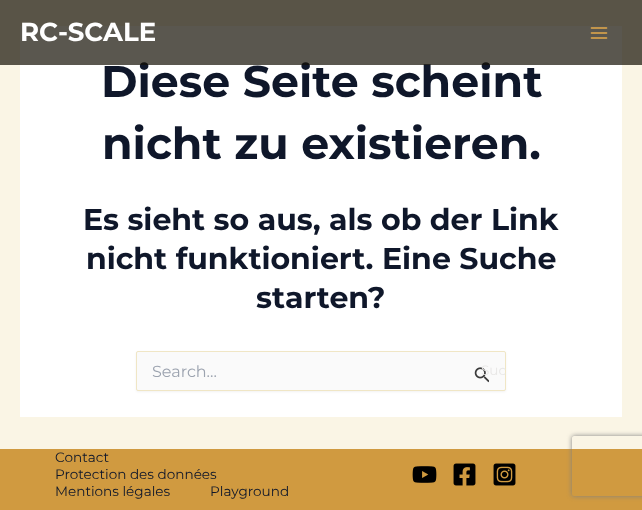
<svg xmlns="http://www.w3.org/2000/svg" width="642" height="510">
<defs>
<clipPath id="clip1"><path d="M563 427h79v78h-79zm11 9h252c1 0 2 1 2 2v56c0 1-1 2-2 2h-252c-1 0-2-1-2-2v-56c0-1 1-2 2-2z" clip-rule="evenodd"/></clipPath>
</defs>
<rect width="100%" height="100%" fill="#faf5e5"/>
<rect x="20" y="26" width="602" height="391" fill="#fff"/>
<text x="101" y="97" style="font-family:Montserrat;font-size:44.25px;font-weight:bold;fill:#0f172a">Diese Seite scheint</text>
<rect width="642" height="65" fill="#141004b3"/>
<text x="20" y="41" style="font-family:Montserrat;font-size:26px;font-weight:bold;fill:#fff">RC-SCALE</text>
<image x="590" y="27" width="18" height="12" href="media/1.png"/>
<text x="102" y="159" style="font-family:Montserrat;font-size:44.25px;font-weight:bold;fill:#0f172a">nicht zu existieren.</text>
<text x="83" y="230" style="font-family:Montserrat;font-size:30px;font-weight:bold;fill:#0f172a">Es sieht so aus, als ob der Link</text>
<text x="86" y="269" style="font-family:Montserrat;font-size:30px;font-weight:bold;fill:#0f172a">nicht funktioniert. Eine Suche</text>
<text x="256" y="308" style="font-family:Montserrat;font-size:30px;font-weight:bold;fill:#0f172a">starten?</text>
<rect x="136" y="352" width="370" height="40" rx="2" fill="#0000000d" filter="blur(1px)"/>
<rect x="136.5" y="351.5" width="369" height="39" rx="1.5" fill="#fafafa" stroke="#f0e6c5"/>
<text x="152" y="377" style="font-family:Montserrat;font-size:16px;fill:#9ca3af">Search...</text>
<image x="474" y="367" width="15" height="16" href="media/2.png"/>
<text x="481" y="375" style="font-family:Montserrat;font-size:13.6px;fill:#e8e7e6">Suc</text>
<rect y="449" width="642" height="61" fill="#d09a40"/>
<text x="55" y="462" style="font-family:Montserrat;font-size:13.6px;fill:#0f172a">Contact</text>
<text x="55" y="479" style="font-family:Montserrat;font-size:13.6px;fill:#0f172a">Protection des données</text>
<text x="55" y="496" style="font-family:Montserrat;font-size:13.6px;fill:#0f172a">Mentions légales</text>
<text x="210" y="496" style="font-family:Montserrat;font-size:13.6px;fill:#0f172a">Playground</text>
<image x="412" y="466" width="25" height="17" href="media/3.png"/>
<image x="453" y="463" width="23" height="23" href="media/4.png"/>
<image x="493" y="463" width="23" height="23" href="media/5.png"/>
<g clip-path="url(#clip1)">
<rect x="572" y="436" width="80" height="60" rx="2" fill="#808080" filter="blur(2.5px)"/>
</g>
</svg>
